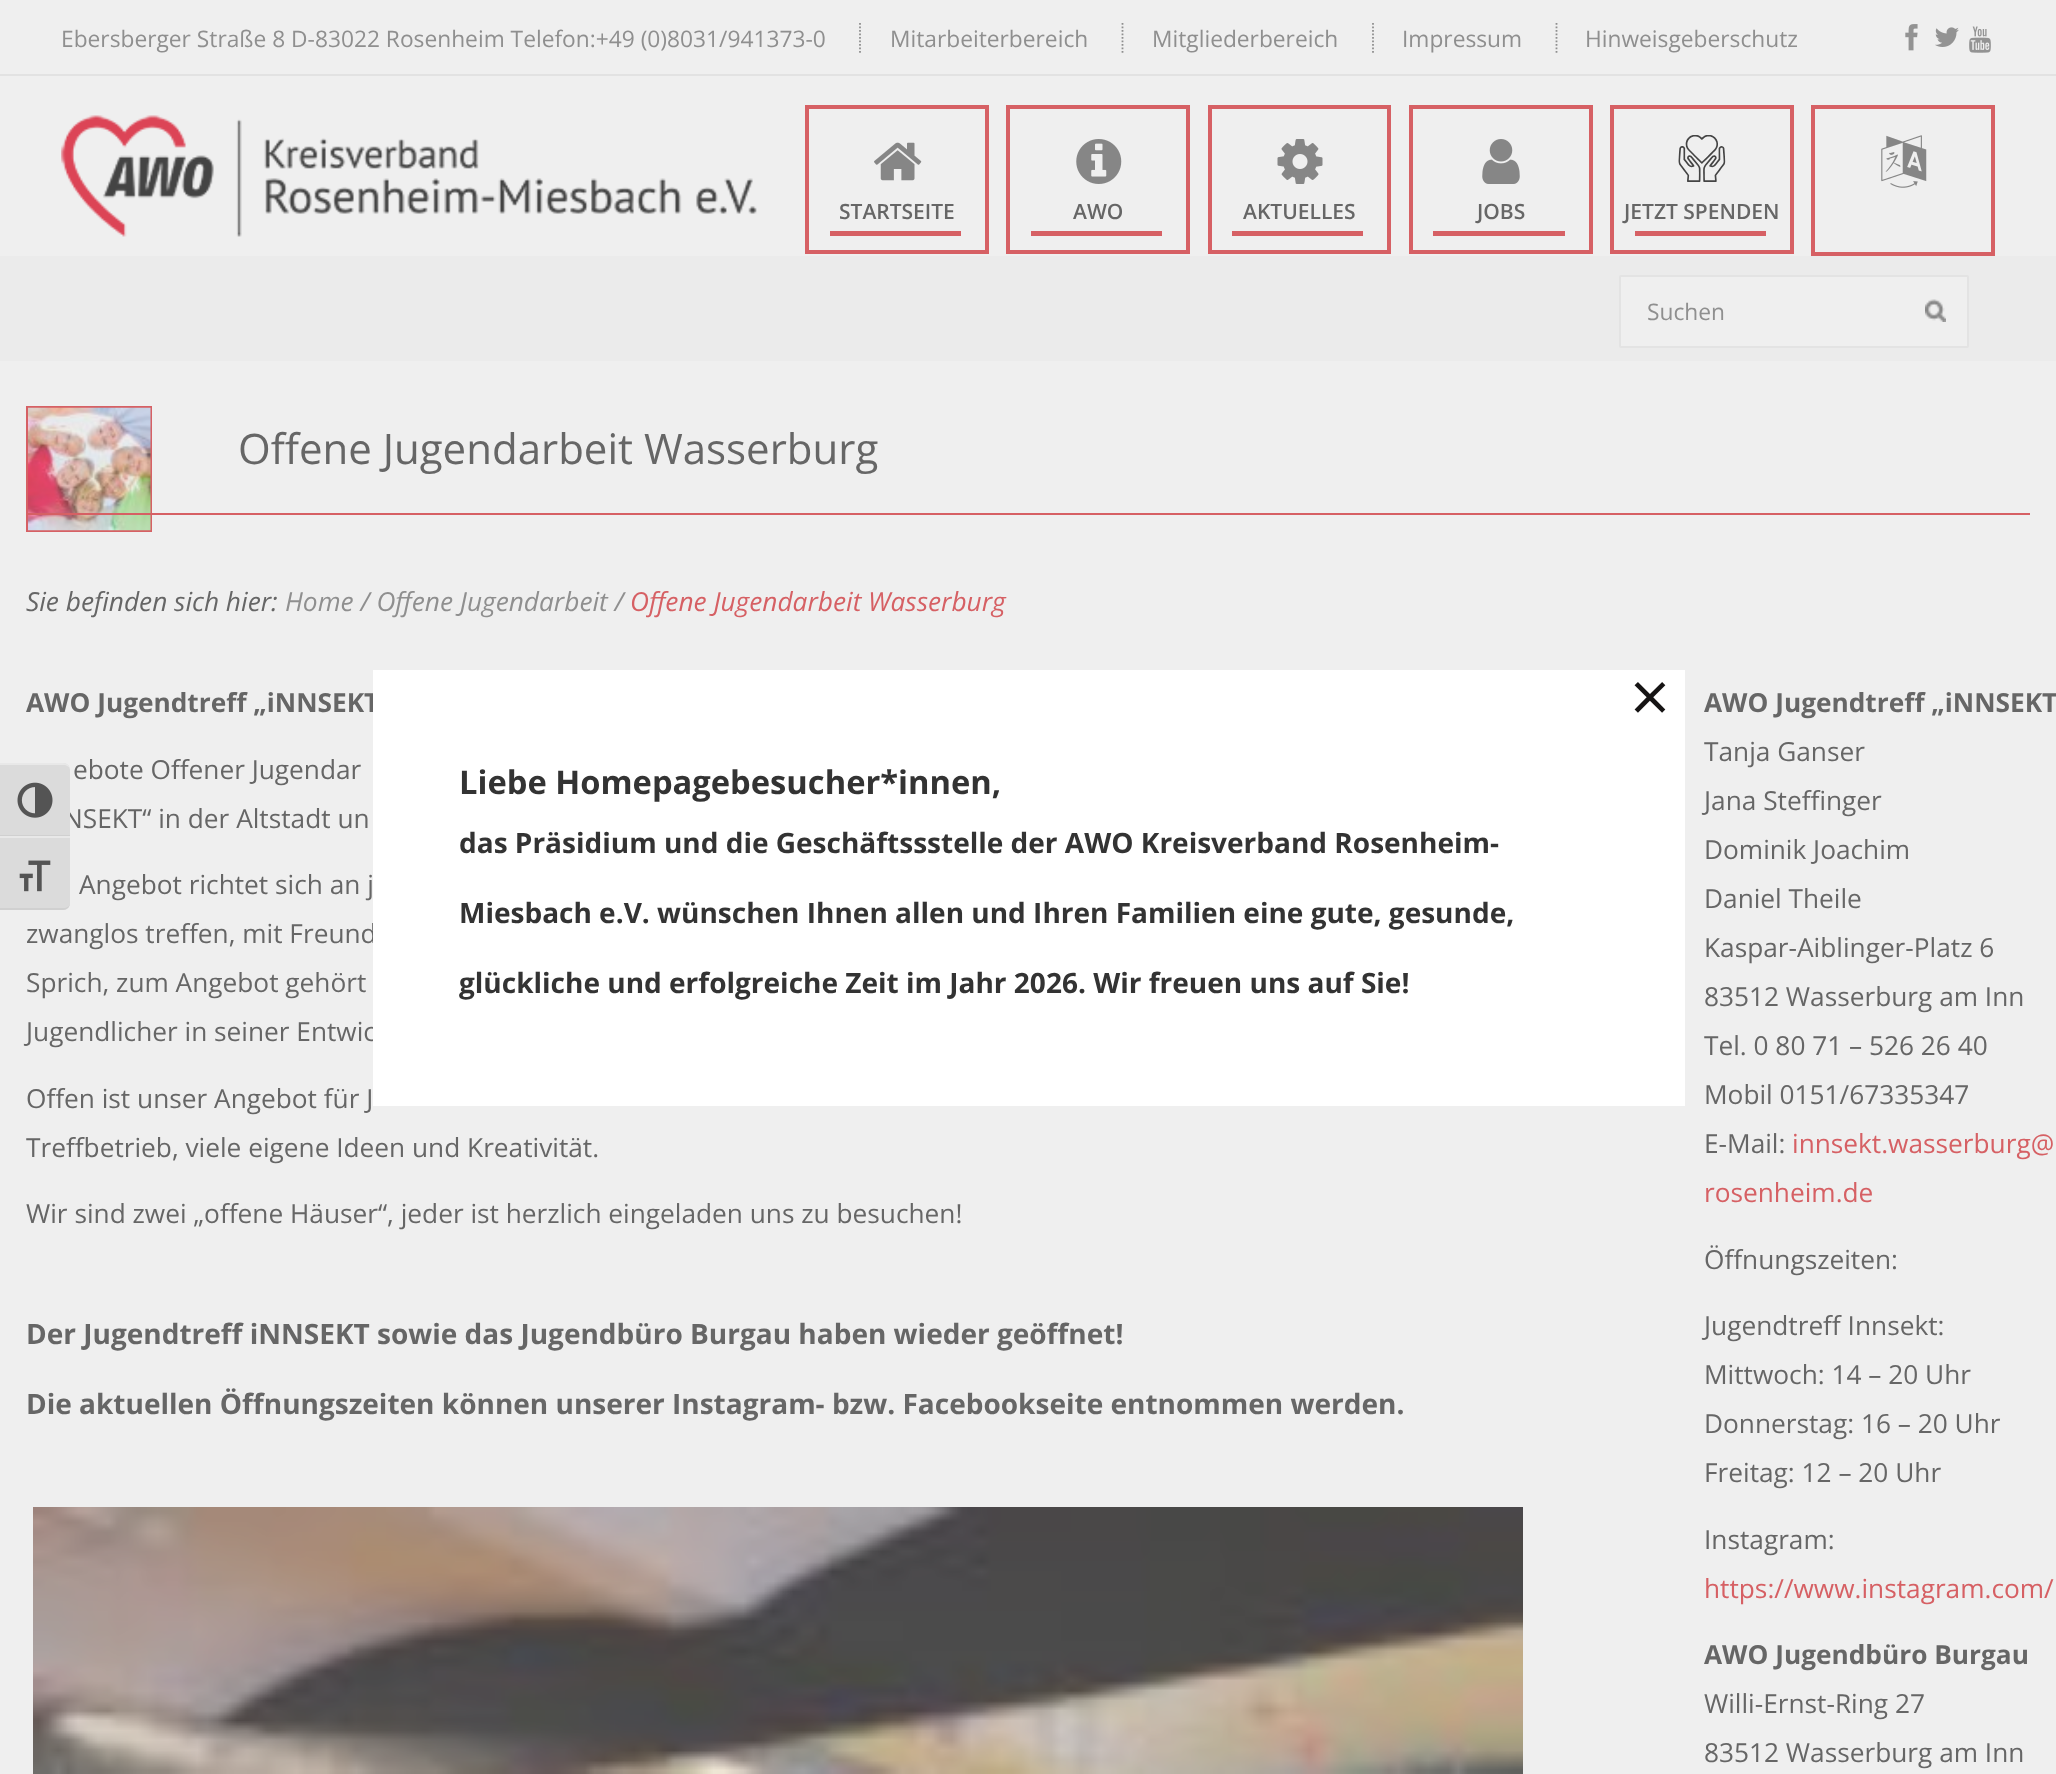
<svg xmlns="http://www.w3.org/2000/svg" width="2056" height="1774">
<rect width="100%" height="100%" fill="#efefef"/>
<rect y="74" width="2056" height="2" fill="#e2e2e2"/>
<text x="61" y="47" style="font-family:Open Sans;font-size:22.75px;fill:#8f8f8f">Ebersberger Straße 8 D-83022 Rosenheim Telefon:+49 (0)8031/941373-0</text>
<text x="890" y="47" style="font-family:Open Sans;font-size:22.75px;fill:#8f8f8f">Mitarbeiterbereich</text>
<path d="M860 23v31" fill="none" stroke="#8f8f8f" stroke-width="1.8" stroke-dasharray="1.75 1.75"/>
<text x="1152" y="47" style="font-family:Open Sans;font-size:22.75px;fill:#8f8f8f">Mitgliederbereich</text>
<path d="M1122.5 23v31" fill="none" stroke="#8f8f8f" stroke-width="1.8" stroke-dasharray="1.75 1.75"/>
<text x="1402" y="47" style="font-family:Open Sans;font-size:22.75px;fill:#8f8f8f">Impressum</text>
<path d="M1373 23v31" fill="none" stroke="#8f8f8f" stroke-width="1.8" stroke-dasharray="1.75 1.75"/>
<text x="1585" y="47" style="font-family:Open Sans;font-size:22.75px;fill:#8f8f8f">Hinweisgeberschutz</text>
<path d="M1556.5 23v31" fill="none" stroke="#8f8f8f" stroke-width="1.8" stroke-dasharray="1.75 1.75"/>
<image x="1905" y="24" width="13" height="27" href="media/1.png"/>
<image x="1935" y="27" width="24" height="20" href="media/2.png"/>
<image x="1969" y="26" width="22" height="27" href="media/3.png"/>
<image x="61" y="115" width="696" height="122" href="media/4.png"/>
<rect x="807" y="107" width="180" height="145" fill="none" stroke="#d66064" stroke-width="4"/>
<image x="874" y="142" width="48" height="39" href="media/5.png"/>
<text x="839" y="219" style="font-family:Open Sans;font-size:21px;font-weight:600;fill:#666">STARTSEITE</text>
<rect x="830" y="231" width="131" height="5" fill="#d66064"/>
<rect x="1008" y="107" width="180" height="145" fill="none" stroke="#d66064" stroke-width="4"/>
<image x="1076" y="139" width="46" height="45" href="media/6.png"/>
<text x="1073" y="219" style="font-family:Open Sans;font-size:21px;font-weight:600;fill:#666">AWO</text>
<rect x="1031" y="231" width="131" height="5" fill="#d66064"/>
<rect x="1210" y="107" width="179" height="145" fill="none" stroke="#d66064" stroke-width="4"/>
<image x="1277" y="139" width="46" height="45" href="media/7.png"/>
<text x="1243" y="219" style="font-family:Open Sans;font-size:21px;font-weight:600;fill:#666">AKTUELLES</text>
<rect x="1232" y="231" width="131" height="5" fill="#d66064"/>
<rect x="1411" y="107" width="180" height="145" fill="none" stroke="#d66064" stroke-width="4"/>
<image x="1482" y="139" width="38" height="45" href="media/8.png"/>
<text x="1477" y="219" style="font-family:Open Sans;font-size:21px;font-weight:600;fill:#666">JOBS</text>
<rect x="1433" y="231" width="132" height="5" fill="#d66064"/>
<rect x="1612" y="107" width="180" height="145" fill="none" stroke="#d66064" stroke-width="4"/>
<image x="1678" y="135" width="48" height="47" href="media/9.png"/>
<text x="1624" y="219" style="font-family:Open Sans;font-size:21px;font-weight:600;fill:#666">JETZT SPENDEN</text>
<rect x="1635" y="231" width="131" height="5" fill="#d66064"/>
<rect x="1813" y="107" width="180" height="147" fill="none" stroke="#d66064" stroke-width="4"/>
<image x="1881" y="135" width="46" height="53" href="media/10.png"/>
<rect y="256" width="2056" height="105" fill="#ebebeb"/>
<rect x="1620" y="276" width="348" height="71" rx="1" fill="#efefef" stroke="#e3e3e3" stroke-width="2"/>
<text x="1647" y="320" style="font-family:Open Sans;font-size:22.75px;fill:#8f8f8f">Suchen</text>
<image x="1925" y="299" width="21" height="23" href="media/11.png"/>
<rect x="27" y="407" width="124" height="124" fill="none" stroke="#d66064" stroke-width="2"/>
<image x="28" y="407" width="123" height="124" href="media/12.png"/>
<text x="238" y="464" style="font-family:Open Sans;font-size:42px;fill:#666">Offene Jugendarbeit Wasserburg</text>
<rect x="26" y="513" width="2004" height="2" fill="#d66064"/>
<text x="26" y="611" style="font-family:Open Sans;font-size:26.25px;font-style:italic;fill:#666">Sie befinden sich hier:</text>
<text x="285" y="611" style="font-family:Open Sans;font-size:26.25px;font-style:italic;fill:#8f8f8f">Home / Offene Jugendarbeit /</text>
<text x="630" y="611" style="font-family:Open Sans;font-size:26.25px;font-style:italic;fill:#d66064">Offene Jugendarbeit Wasserburg</text>
<text x="26" y="712" style="font-family:Open Sans;font-size:26.25px;font-weight:bold;fill:#666">AWO Jugendtreff „iNNSEKT</text>
<text x="73" y="779" style="font-family:Open Sans;font-size:26.25px;fill:#666">ebote Offener Jugendar</text>
<text x="63" y="828" style="font-family:Open Sans;font-size:26.25px;fill:#666">NSEKT“ in der Altstadt un</text>
<text x="79" y="894" style="font-family:Open Sans;font-size:26.25px;fill:#666">Angebot richtet sich an j</text>
<text x="26" y="943" style="font-family:Open Sans;font-size:26.25px;fill:#666">zwanglos treffen, mit Freund</text>
<text x="26" y="992" style="font-family:Open Sans;font-size:26.25px;fill:#666">Sprich, zum Angebot gehört</text>
<text x="26" y="1041" style="font-family:Open Sans;font-size:26.25px;fill:#666">Jugendlicher in seiner Entwic</text>
<text x="26" y="1108" style="font-family:Open Sans;font-size:26.25px;fill:#666">Offen ist unser Angebot für J</text>
<text x="26" y="1157" style="font-family:Open Sans;font-size:26.25px;fill:#666">Treffbetrieb, viele eigene Ideen und Kreativität.</text>
<text x="26" y="1223" style="font-family:Open Sans;font-size:26.25px;fill:#666">Wir sind zwei „offene Häuser“, jeder ist herzlich eingeladen uns zu besuchen!</text>
<text x="26" y="1344" style="font-family:Open Sans;font-size:28px;font-weight:bold;fill:#666">Der Jugendtreff iNNSEKT sowie das Jugendbüro Burgau haben wieder geöffnet!</text>
<text x="26" y="1414" style="font-family:Open Sans;font-size:28px;font-weight:bold;fill:#666">Die aktuellen Öffnungszeiten können unserer Instagram- bzw. Facebookseite entnommen werden.</text>
<image x="33" y="1507" width="1490" height="267" href="media/13.png"/>
<text x="1704" y="712" style="font-family:Open Sans;font-size:26.25px;font-weight:bold;fill:#666">AWO Jugendtreff „iNNSEKT</text>
<text x="1704" y="761" style="font-family:Open Sans;font-size:26.25px;fill:#666">Tanja Ganser</text>
<text x="1704" y="810" style="font-family:Open Sans;font-size:26.25px;fill:#666">Jana Steffinger</text>
<text x="1704" y="859" style="font-family:Open Sans;font-size:26.25px;fill:#666">Dominik Joachim</text>
<text x="1704" y="908" style="font-family:Open Sans;font-size:26.25px;fill:#666">Daniel Theile</text>
<text x="1704" y="957" style="font-family:Open Sans;font-size:26.25px;fill:#666">Kaspar-Aiblinger-Platz 6</text>
<text x="1704" y="1006" style="font-family:Open Sans;font-size:26.25px;fill:#666">83512 Wasserburg am Inn</text>
<text x="1704" y="1055" style="font-family:Open Sans;font-size:26.25px;fill:#666">Tel. 0 80 71 – 526 26 40</text>
<text x="1704" y="1104" style="font-family:Open Sans;font-size:26.25px;fill:#666">Mobil 0151/67335347</text>
<text x="1704" y="1153" style="font-family:Open Sans;font-size:26.25px;fill:#666">E-Mail:</text>
<text x="1792" y="1153" style="font-family:Open Sans;font-size:26.25px;fill:#d66064">innsekt.wasserburg@</text>
<text x="1704" y="1202" style="font-family:Open Sans;font-size:26.25px;fill:#d66064">rosenheim.de</text>
<text x="1704" y="1269" style="font-family:Open Sans;font-size:26.25px;fill:#666">Öffnungszeiten:</text>
<text x="1704" y="1335" style="font-family:Open Sans;font-size:26.25px;fill:#666">Jugendtreff Innsekt:</text>
<text x="1704" y="1384" style="font-family:Open Sans;font-size:26.25px;fill:#666">Mittwoch: 14 – 20 Uhr</text>
<text x="1704" y="1433" style="font-family:Open Sans;font-size:26.25px;fill:#666">Donnerstag: 16 – 20 Uhr</text>
<text x="1704" y="1482" style="font-family:Open Sans;font-size:26.25px;fill:#666">Freitag: 12 – 20 Uhr</text>
<text x="1704" y="1549" style="font-family:Open Sans;font-size:26.25px;fill:#666">Instagram:</text>
<text x="1704" y="1598" style="font-family:Open Sans;font-size:26.25px;fill:#d66064">https://www.instagram.com/</text>
<text x="1704" y="1664" style="font-family:Open Sans;font-size:26.25px;font-weight:bold;fill:#666">AWO Jugendbüro Burgau</text>
<text x="1704" y="1713" style="font-family:Open Sans;font-size:26.25px;fill:#666">Willi-Ernst-Ring 27</text>
<text x="1704" y="1762" style="font-family:Open Sans;font-size:26.25px;fill:#666">83512 Wasserburg am Inn</text>
<path d="M0 763h63c4 0 7 3 7 7v67h-70z" fill="#dbdbdb"/>
<path d="M0 763v2h63c4 0 7 2 7 5c0-4-3-7-7-7z" fill="#e8e8e8"/>
<rect y="835" width="70" height="1" fill="#d0d0d0"/>
<image x="17" y="782" width="36" height="36" href="media/14.png"/>
<path d="M0 837h70v66c0 4-3 7-7 7h-63z" fill="#dbdbdb"/>
<rect y="836" width="70" height="2" fill="#e8e8e8"/>
<path d="M0 908v2h63c4 0 7-3 7-7c0 3-3 5-7 5z" fill="#d0d0d0"/>
<image x="19" y="860" width="32" height="32" href="media/15.png"/>
<rect x="373" y="670" width="1312" height="436" fill="#fff"/>
<text x="1630" y="722" style="font-family:Open Sans;font-size:70px;fill:#161414">×</text>
<text x="459" y="794" style="font-family:Open Sans;font-size:32.7px;font-weight:bold;fill:#333">Liebe Homepagebesucher*innen,</text>
<text x="459" y="853" style="font-family:Open Sans;font-size:28px;font-weight:bold;fill:#333">das Präsidium und die Geschäftssstelle der AWO Kreisverband Rosenheim-</text>
<text x="459" y="923" style="font-family:Open Sans;font-size:28px;font-weight:bold;fill:#333">Miesbach e.V. wünschen Ihnen allen und Ihren Familien eine gute, gesunde,</text>
<text x="459" y="993" style="font-family:Open Sans;font-size:28px;font-weight:bold;fill:#333">glückliche und erfolgreiche Zeit im Jahr 2026. Wir freuen uns auf Sie!</text>
</svg>
